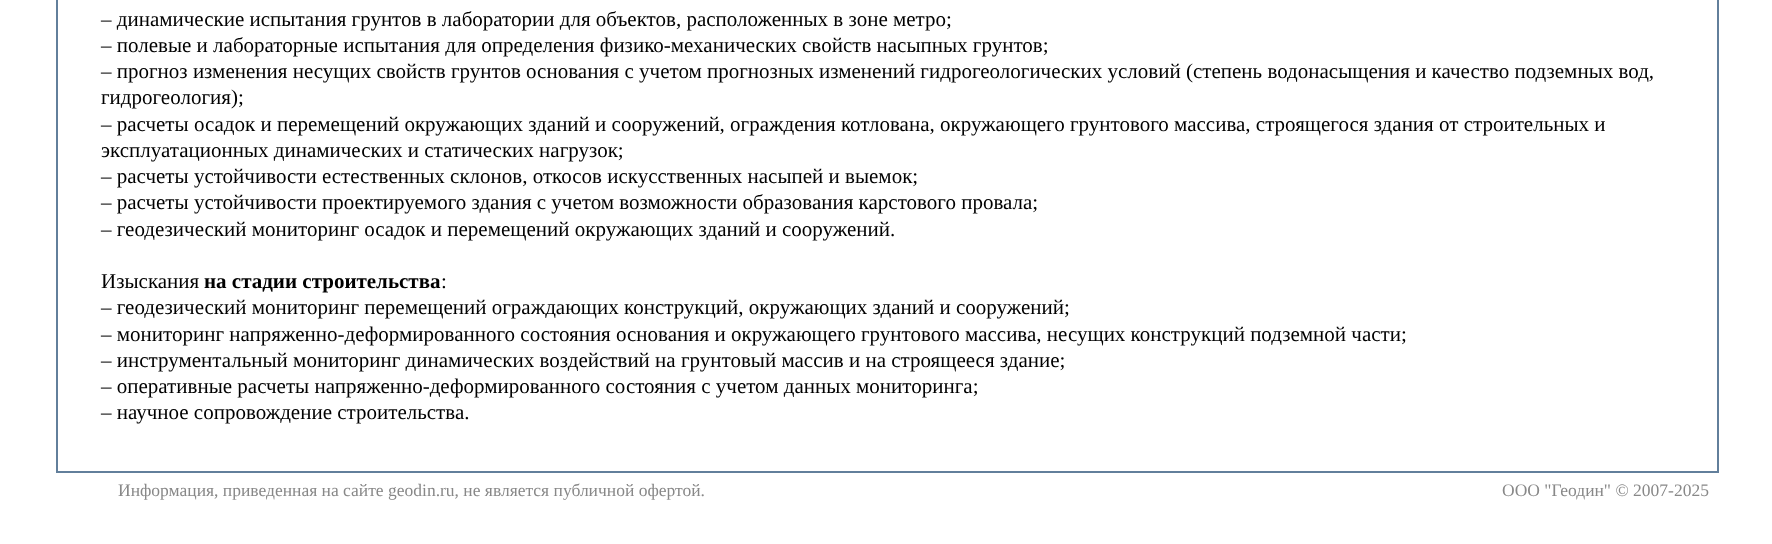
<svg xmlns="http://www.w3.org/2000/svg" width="1772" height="544">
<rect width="100%" height="100%" fill="#fff"/>
<rect x="1717" width="2" height="473" fill="#627f9b"/>
<rect x="56" y="471" width="1663" height="2" fill="#627f9b"/>
<rect x="56" width="2" height="473" fill="#627f9b"/>
<text x="101" y="26" style="font-family:Liberation Serif;font-size:21px;fill:#000">– динамические испытания грунтов в лаборатории для объектов, расположенных в зоне метро;</text>
<text x="101" y="52" style="font-family:Liberation Serif;font-size:21px;fill:#000">– полевые и лабораторные испытания для определения физико-механических свойств насыпных грунтов;</text>
<text x="101" y="78" style="font-family:Liberation Serif;font-size:21px;fill:#000">– прогноз изменения несущих свойств грунтов основания с учетом прогнозных изменений гидрогеологических условий (степень водонасыщения и качество подземных вод,</text>
<text x="101" y="104" style="font-family:Liberation Serif;font-size:21px;fill:#000">гидрогеология);</text>
<text x="101" y="131" style="font-family:Liberation Serif;font-size:21px;fill:#000">– расчеты осадок и перемещений окружающих зданий и сооружений, ограждения котлована, окружающего грунтового массива, строящегося здания от строительных и</text>
<text x="101" y="157" style="font-family:Liberation Serif;font-size:21px;fill:#000">эксплуатационных динамических и статических нагрузок;</text>
<text x="101" y="183" style="font-family:Liberation Serif;font-size:21px;fill:#000">– расчеты устойчивости естественных склонов, откосов искусственных насыпей и выемок;</text>
<text x="101" y="209" style="font-family:Liberation Serif;font-size:21px;fill:#000">– расчеты устойчивости проектируемого здания с учетом возможности образования карстового провала;</text>
<text x="101" y="236" style="font-family:Liberation Serif;font-size:21px;fill:#000">– геодезический мониторинг осадок и перемещений окружающих зданий и сооружений.</text>
<text x="101" y="288" style="font-family:Liberation Serif;font-size:21px;fill:#000">Изыскания</text>
<text x="204" y="288" style="font-family:Liberation Serif;font-size:21px;font-weight:bold;fill:#000">на стадии строительства</text>
<text x="441" y="288" style="font-family:Liberation Serif;font-size:21px;fill:#000">:</text>
<text x="101" y="314" style="font-family:Liberation Serif;font-size:21px;fill:#000">– геодезический мониторинг перемещений ограждающих конструкций, окружающих зданий и сооружений;</text>
<text x="101" y="341" style="font-family:Liberation Serif;font-size:21px;fill:#000">– мониторинг напряженно-деформированного состояния основания и окружающего грунтового массива, несущих конструкций подземной части;</text>
<text x="101" y="367" style="font-family:Liberation Serif;font-size:21px;fill:#000">– инструментальный мониторинг динамических воздействий на грунтовый массив и на строящееся здание;</text>
<text x="101" y="393" style="font-family:Liberation Serif;font-size:21px;fill:#000">– оперативные расчеты напряженно-деформированного состояния с учетом данных мониторинга;</text>
<text x="101" y="419" style="font-family:Liberation Serif;font-size:21px;fill:#000">– научное сопровождение строительства.</text>
<text x="118" y="496" style="font-family:Liberation Serif;font-size:17.5px;fill:#888">Информация, приведенная на сайте geodin.ru, не является публичной офертой.</text>
<text x="1502" y="496" style="font-family:Liberation Serif;font-size:17.5px;fill:#888">ООО "Геодин" © 2007-2025</text>
</svg>
